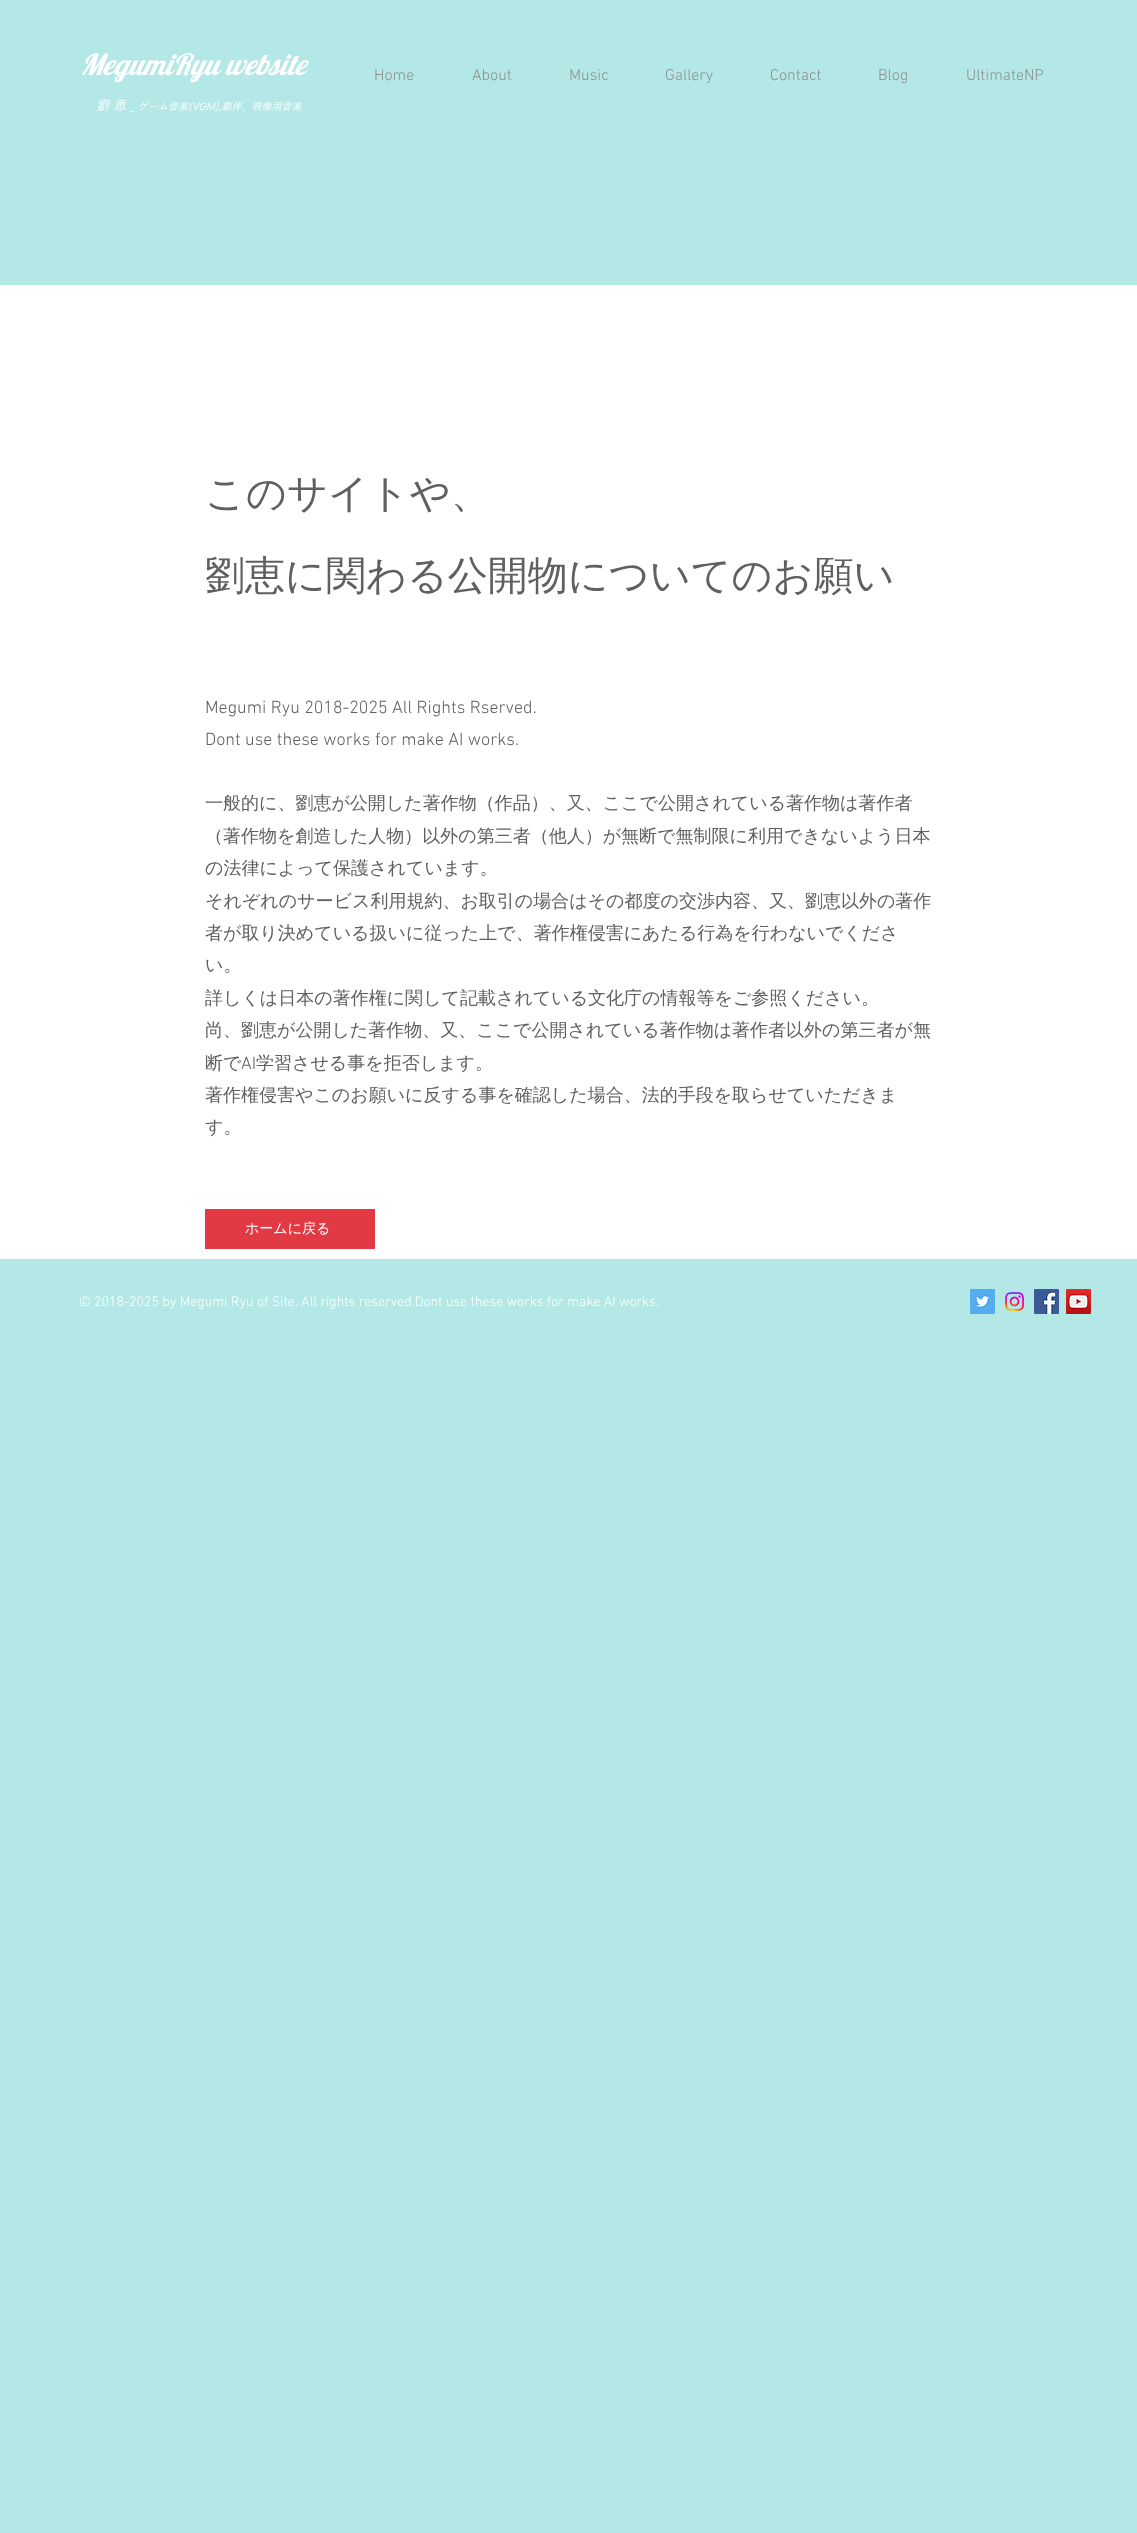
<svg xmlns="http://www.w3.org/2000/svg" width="1137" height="2533">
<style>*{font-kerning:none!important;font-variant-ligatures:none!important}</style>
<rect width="100%" height="100%" fill="#b4e8e7"/>
<text x="80" y="75" style="font-family:Lobster;font-size:29px;font-style:italic;fill:#fff">MegumiRyu website</text>
<text x="96" y="110" style="font-family:'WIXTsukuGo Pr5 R';font-size:13px;font-style:italic;fill:#fff">劉 恵</text>
<text x="130" y="110" style="font-family:'WIXTsukuGo Pr5 R';font-size:10px;font-style:italic;fill:#fff">_ ゲーム音楽(VGM),劇伴、映像用音楽</text>
<text x="374" y="80" style="font-family:'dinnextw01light';font-size:16px;font-weight:300;fill:#8f8f8f">Home</text>
<text x="472" y="80" style="font-family:'dinnextw01light';font-size:16px;font-weight:300;fill:#8f8f8f">About</text>
<text x="569" y="80" style="font-family:'dinnextw01light';font-size:16px;font-weight:300;fill:#8f8f8f">Music</text>
<text x="665" y="80" style="font-family:'dinnextw01light';font-size:16px;font-weight:300;fill:#8f8f8f">Gallery</text>
<text x="770" y="80" style="font-family:'dinnextw01light';font-size:16px;font-weight:300;fill:#8f8f8f">Contact</text>
<text x="878" y="80" style="font-family:'dinnextw01light';font-size:16px;font-weight:300;fill:#8f8f8f">Blog</text>
<text x="966" y="80" style="font-family:'dinnextw01light';font-size:16px;font-weight:300;fill:#8f8f8f">UltimateNP</text>
<rect y="285" width="1137" height="974" fill="#fff"/>
<text x="205" y="507" style="font-family:WenQuanYi Zen Hei;font-size:40px;font-weight:500;fill:#606060">このサイトや、</text>
<text x="205" y="589" style="font-family:WenQuanYi Zen Hei;font-size:40px;font-weight:500;fill:#606060">劉恵に関わる公開物についてのお願い</text>
<text x="205" y="713" style="font-family:'dinnextw01light';font-size:18px;font-weight:300;fill:#606060">Megumi Ryu 2018-2025 All Rights Rserved.</text>
<text x="205" y="745" style="font-family:'dinnextw01light';font-size:18px;font-weight:300;fill:#606060">Dont use these works for make AI works.</text>
<text x="205" y="809" style="font-family:WenQuanYi Zen Hei;font-size:18px;font-weight:500;fill:#606060">一般的に、劉恵が公開した著作物（作品）、又、ここで公開されている著作物は著作者</text>
<text x="205" y="842" style="font-family:WenQuanYi Zen Hei;font-size:18px;font-weight:500;fill:#606060">（著作物を創造した人物）以外の第三者（他人）が無断で無制限に利用できないよう日本</text>
<text x="205" y="874" style="font-family:WenQuanYi Zen Hei;font-size:18px;font-weight:500;fill:#606060">の法律によって保護されています。</text>
<text x="205" y="907" style="font-family:WenQuanYi Zen Hei;font-size:18px;font-weight:500;fill:#606060">それぞれのサービス利用規約、お取引の場合はその都度の交渉内容、又、劉恵以外の著作</text>
<text x="205" y="939" style="font-family:WenQuanYi Zen Hei;font-size:18px;font-weight:500;fill:#606060">者が取り決めている扱いに従った上で、著作権侵害にあたる行為を行わないでくださ</text>
<text x="205" y="971" style="font-family:WenQuanYi Zen Hei;font-size:18px;font-weight:500;fill:#606060">い。</text>
<text x="205" y="1004" style="font-family:WenQuanYi Zen Hei;font-size:18px;font-weight:500;fill:#606060">詳しくは日本の著作権に関して記載されている文化庁の情報等をご参照ください。</text>
<text x="205" y="1036" style="font-family:WenQuanYi Zen Hei;font-size:18px;font-weight:500;fill:#606060">尚、劉恵が公開した著作物、又、ここで公開されている著作物は著作者以外の第三者が無</text>
<text x="205" y="1069" style="font-family:WenQuanYi Zen Hei;font-size:18px;font-weight:500;fill:#606060">断で</text>
<text x="241" y="1069" style="font-family:'dinnextw01light';font-size:18px;font-weight:300;fill:#606060">AI</text>
<text x="256" y="1069" style="font-family:WenQuanYi Zen Hei;font-size:18px;font-weight:500;fill:#606060">学習させる事を拒否します。</text>
<text x="205" y="1101" style="font-family:WenQuanYi Zen Hei;font-size:18px;font-weight:500;fill:#606060">著作権侵害やこのお願いに反する事を確認した場合、法的手段を取らせていただきま</text>
<text x="205" y="1133" style="font-family:WenQuanYi Zen Hei;font-size:18px;font-weight:500;fill:#606060">す。</text>
<rect x="205" y="1209" width="170" height="40" fill="#e13a44"/>
<text x="245" y="1233" style="font-family:WenQuanYi Zen Hei;font-size:14px;font-weight:500;fill:#fff">ホームに戻る</text>
<text x="79" y="1306" style="font-family:'dinnextw01light';font-size:14px;font-weight:300;fill:#fff">© 2018-2025 by Megumi Ryu of Site. All rights reserved.Dont use these works for make AI works.</text>
<image x="970" y="1289" width="25" height="25" href="media/1.png"/>
<image x="1005" y="1292" width="19" height="19" href="media/2.png"/>
<image x="1034" y="1289" width="25" height="25" href="media/3.png"/>
<image x="1066" y="1289" width="25" height="25" href="media/4.png"/>
</svg>
